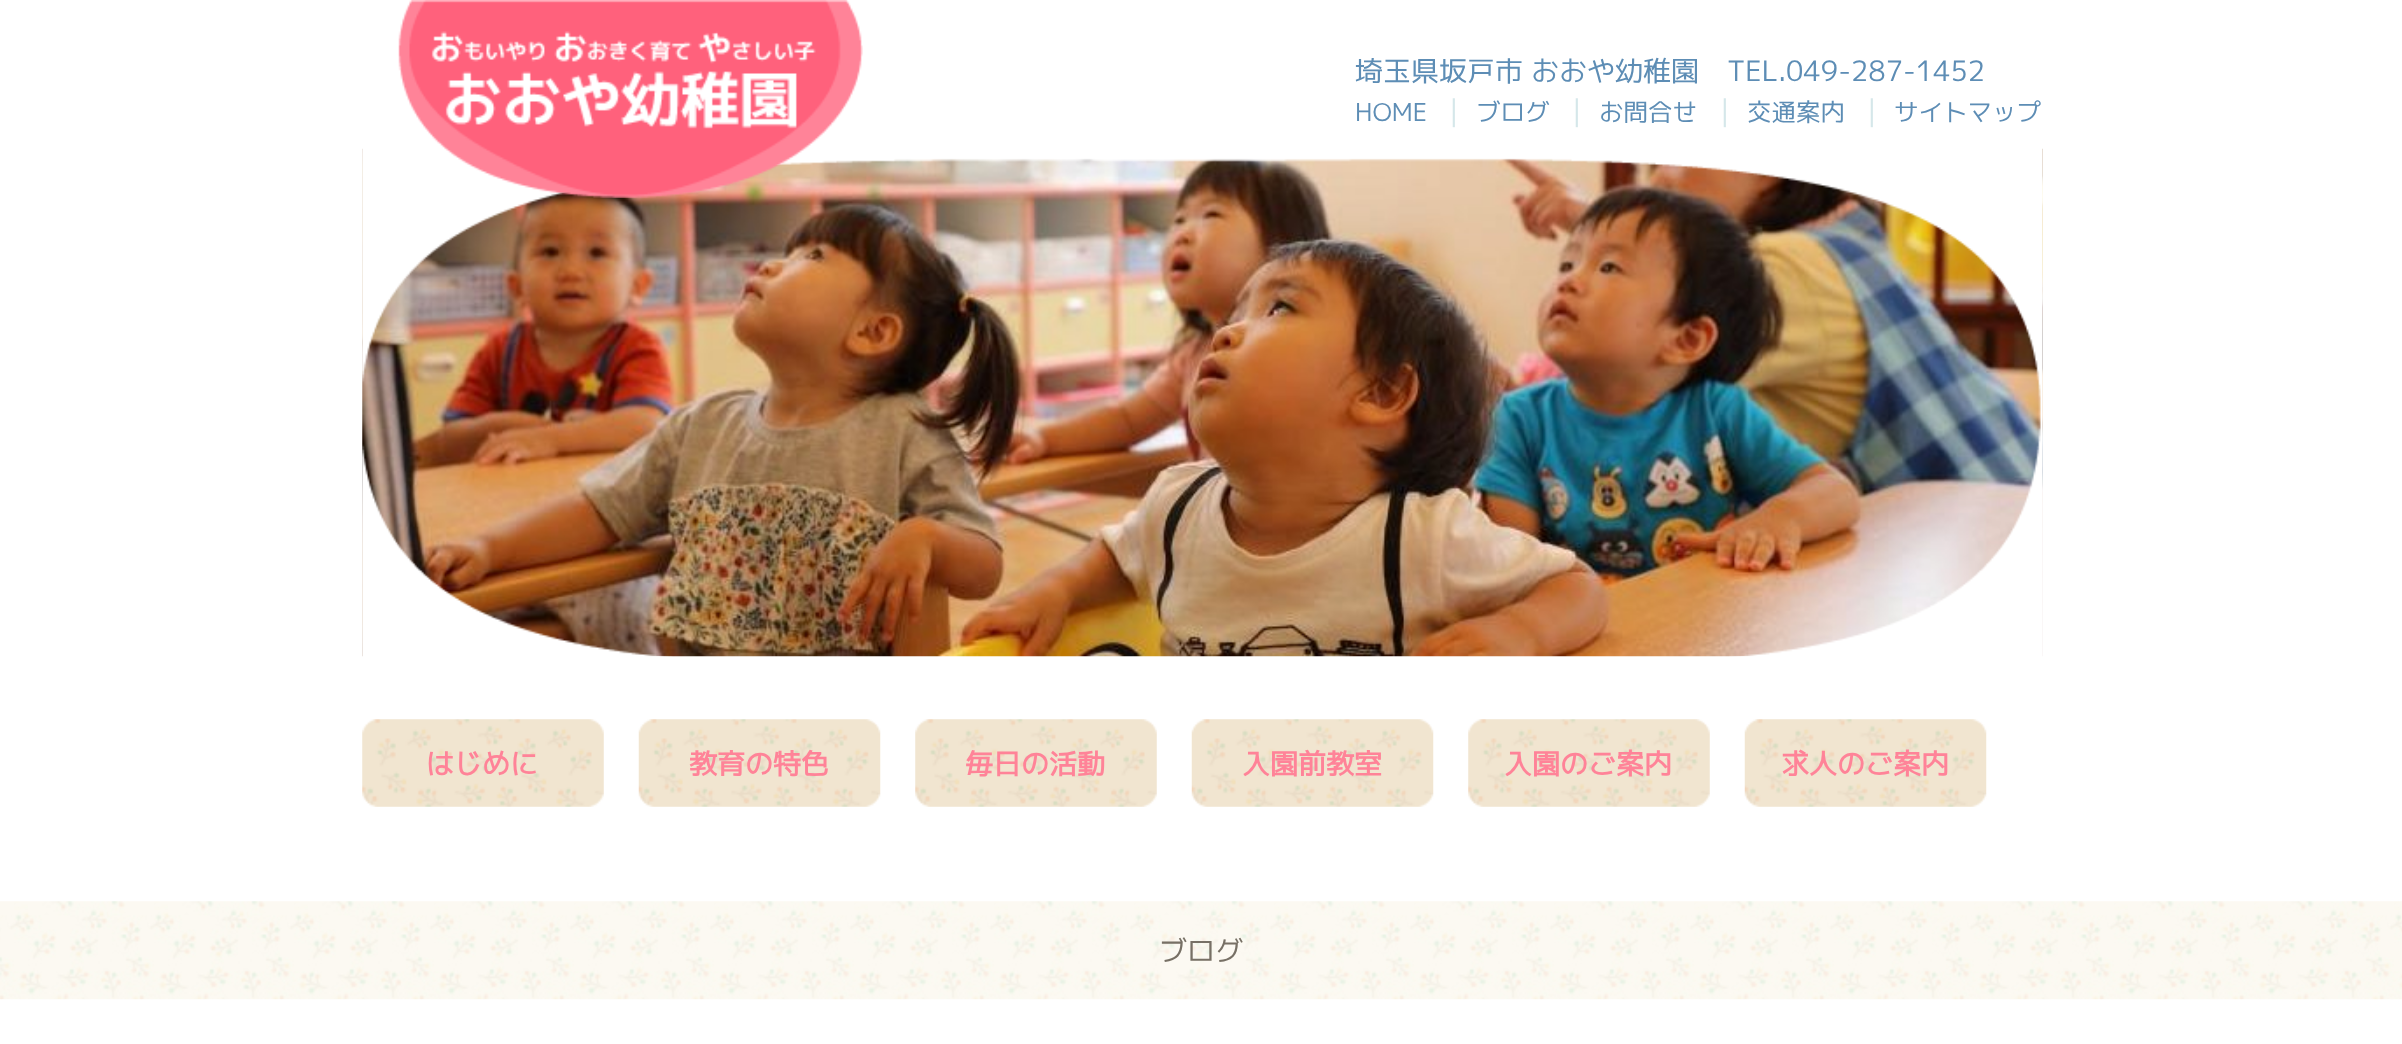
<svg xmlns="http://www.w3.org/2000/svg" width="2402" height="1044">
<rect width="100%" height="100%" fill="#fff"/>
<image x="362" y="148" width="1681" height="509" href="media/2.png"/>
<image x="362" y="148" width="1681" height="509" href="media/3.png"/>
<image x="398" y="0" width="465" height="198" href="media/1.png"/>
<text x="1355" y="81" style="font-family:'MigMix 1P';font-size:28px;fill:#5d8db5">埼玉県坂戸市 おおや幼稚園</text>
<text x="1727" y="81" style="font-family:'MigMix 1P';font-size:28px;fill:#5d8db5">TEL.049-287-1452</text>
<text x="1355" y="121" style="font-family:'MigMix 1P';font-size:24.5px;fill:#5d8db5">HOME</text>
<text x="1449" y="121" style="font-family:'MigMix 1P';font-size:28px;fill:#d5e7ea">|</text>
<text x="1476" y="121" style="font-family:'MigMix 1P';font-size:24.5px;fill:#5d8db5">ブログ</text>
<text x="1572" y="121" style="font-family:'MigMix 1P';font-size:28px;fill:#d5e7ea">|</text>
<text x="1599" y="121" style="font-family:'MigMix 1P';font-size:24.5px;fill:#5d8db5">お問合せ</text>
<text x="1720" y="121" style="font-family:'MigMix 1P';font-size:28px;fill:#d5e7ea">|</text>
<text x="1747" y="121" style="font-family:'MigMix 1P';font-size:24.5px;fill:#5d8db5">交通案内</text>
<text x="1867" y="121" style="font-family:'MigMix 1P';font-size:28px;fill:#d5e7ea">|</text>
<text x="1894" y="121" style="font-family:'MigMix 1P';font-size:24.5px;fill:#5d8db5">サイトマップ</text>
<image x="362" y="719" width="242" height="88" href="media/4.png"/>
<text x="426" y="774" style="font-family:'MigMix 1P';font-size:28px;font-weight:bold;fill:#ff8398">はじめに</text>
<image x="638" y="719" width="243" height="88" href="media/5.png"/>
<text x="689" y="774" style="font-family:'MigMix 1P';font-size:28px;font-weight:bold;fill:#ff8398">教育の特色</text>
<image x="915" y="719" width="242" height="88" href="media/6.png"/>
<text x="965" y="774" style="font-family:'MigMix 1P';font-size:28px;font-weight:bold;fill:#ff8398">毎日の活動</text>
<image x="1191" y="719" width="243" height="88" href="media/5.png"/>
<text x="1242" y="774" style="font-family:'MigMix 1P';font-size:28px;font-weight:bold;fill:#ff8398">入園前教室</text>
<image x="1468" y="719" width="242" height="88" href="media/7.png"/>
<text x="1504" y="774" style="font-family:'MigMix 1P';font-size:28px;font-weight:bold;fill:#ff8398">入園のご案内</text>
<image x="1744" y="719" width="243" height="88" href="media/5.png"/>
<text x="1781" y="774" style="font-family:'MigMix 1P';font-size:28px;font-weight:bold;fill:#ff8398">求人のご案内</text>
<image x="0" y="901" width="2402" height="99" href="media/8.png"/>
<text x="1159" y="961" style="font-family:'MigMix 1P';font-size:28px;fill:#777065">ブログ</text>
</svg>
